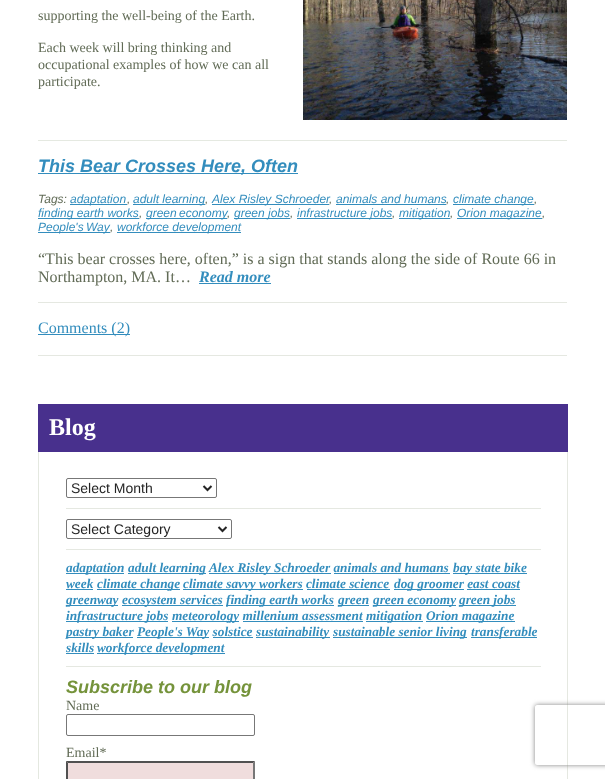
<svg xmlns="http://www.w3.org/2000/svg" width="605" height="779">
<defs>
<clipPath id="clip1"><path d="M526 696h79v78h-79zm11 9h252c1 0 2 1 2 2v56c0 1-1 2-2 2h-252c-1 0-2-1-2-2v-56c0-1 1-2 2-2z" clip-rule="evenodd"/></clipPath>
</defs>
<rect width="100%" height="100%" fill="#fff"/>
<text x="38" y="20" style="font-family:Liberation Serif;font-size:14px;fill:#616b56">supporting the well-being of the Earth.</text>
<image x="303" y="0" width="264" height="120" href="media/1.png"/>
<text x="38" y="52" style="font-family:Liberation Serif;font-size:14px;fill:#616b56">Each week will bring thinking and</text>
<text x="38" y="69" style="font-family:Liberation Serif;font-size:14px;fill:#616b56">occupational examples of how we can all</text>
<text x="38" y="86" style="font-family:Liberation Serif;font-size:14px;fill:#616b56">participate.</text>
<rect x="38" y="140" width="529" height="1" fill="#e5e9e1"/>
<rect x="38" y="173" width="260" height="1" fill="#338dbd"/>
<text x="38" y="172" style="font-family:Liberation Sans;font-size:18px;font-weight:bold;font-style:italic;fill:#338dbd">This Bear Crosses Here, Often</text>
<text x="38" y="203" style="font-family:Liberation Sans;font-size:12px;font-style:italic;fill:#616b56">Tags:</text>
<rect x="70" y="204" width="57" height="1" fill="#338dbd"/>
<text x="70" y="203" style="font-family:Liberation Sans;font-size:12px;font-style:italic;fill:#338dbd">adaptation</text>
<text x="127" y="203" style="font-family:Liberation Sans;font-size:12px;font-style:italic;fill:#616b56">,</text>
<rect x="133" y="204" width="72" height="1" fill="#338dbd"/>
<text x="133" y="203" style="font-family:Liberation Sans;font-size:12px;font-style:italic;fill:#338dbd">adult learning</text>
<text x="205" y="203" style="font-family:Liberation Sans;font-size:12px;font-style:italic;fill:#616b56">,</text>
<rect x="212" y="204" width="117" height="1" fill="#338dbd"/>
<text x="212" y="203" style="font-family:Liberation Sans;font-size:12px;font-style:italic;fill:#338dbd">Alex Risley Schroeder</text>
<text x="336" y="203" style="font-family:Liberation Sans;font-size:12px;font-style:italic;fill:#338dbd">animals and humans</text>
<rect x="336" y="204" width="110" height="1" fill="#338dbd"/>
<rect x="453" y="204" width="81" height="1" fill="#338dbd"/>
<text x="453" y="203" style="font-family:Liberation Sans;font-size:12px;font-style:italic;fill:#338dbd">climate change</text>
<text x="329" y="203" style="font-family:Liberation Sans;font-size:12px;font-style:italic;fill:#616b56">,</text>
<text x="446" y="203" style="font-family:Liberation Sans;font-size:12px;font-style:italic;fill:#616b56">,</text>
<text x="534" y="203" style="font-family:Liberation Sans;font-size:12px;font-style:italic;fill:#616b56">,</text>
<rect x="38" y="218" width="101" height="1" fill="#338dbd"/>
<text x="38" y="217" style="font-family:Liberation Sans;font-size:12px;font-style:italic;fill:#338dbd">finding earth works</text>
<text x="139" y="217" style="font-family:Liberation Sans;font-size:12px;font-style:italic;fill:#616b56">,</text>
<rect x="146" y="218" width="81" height="1" fill="#338dbd"/>
<text x="146" y="217" word-spacing="-1" style="font-family:Liberation Sans;font-size:12px;font-style:italic;fill:#338dbd">green economy</text>
<rect x="234" y="218" width="56" height="1" fill="#338dbd"/>
<text x="234" y="217" style="font-family:Liberation Sans;font-size:12px;font-style:italic;fill:#338dbd">green jobs</text>
<rect x="297" y="218" width="95" height="1" fill="#338dbd"/>
<text x="297" y="217" style="font-family:Liberation Sans;font-size:12px;font-style:italic;fill:#338dbd">infrastructure jobs</text>
<rect x="399" y="218" width="51" height="1" fill="#338dbd"/>
<text x="399" y="217" style="font-family:Liberation Sans;font-size:12px;font-style:italic;fill:#338dbd">mitigation</text>
<rect x="457" y="218" width="85" height="1" fill="#338dbd"/>
<text x="457" y="217" style="font-family:Liberation Sans;font-size:12px;font-style:italic;fill:#338dbd">Orion magazine</text>
<text x="227" y="217" style="font-family:Liberation Sans;font-size:12px;font-style:italic;fill:#616b56">,</text>
<text x="290" y="217" style="font-family:Liberation Sans;font-size:12px;font-style:italic;fill:#616b56">,</text>
<text x="392" y="217" style="font-family:Liberation Sans;font-size:12px;font-style:italic;fill:#616b56">,</text>
<text x="450" y="217" style="font-family:Liberation Sans;font-size:12px;font-style:italic;fill:#616b56">,</text>
<text x="542" y="217" style="font-family:Liberation Sans;font-size:12px;font-style:italic;fill:#616b56">,</text>
<rect x="38" y="232" width="72" height="1" fill="#338dbd"/>
<text x="38" y="231" word-spacing="-1" style="font-family:Liberation Sans;font-size:12px;font-style:italic;fill:#338dbd">People's Way</text>
<text x="110" y="231" style="font-family:Liberation Sans;font-size:12px;font-style:italic;fill:#616b56">,</text>
<rect x="117" y="232" width="124" height="1" fill="#338dbd"/>
<text x="117" y="231" style="font-family:Liberation Sans;font-size:12px;font-style:italic;fill:#338dbd">workforce development</text>
<text x="38" y="264" style="font-family:Liberation Serif;font-size:16px;fill:#616b56">“This bear crosses here, often,” is a sign that stands along the side of Route 66 in</text>
<text x="38" y="282" style="font-family:Liberation Serif;font-size:16px;fill:#616b56">Northampton, MA. It…</text>
<text x="199" y="282" style="font-family:Liberation Serif;font-size:16px;font-weight:bold;font-style:italic;fill:#338dbd">Read more</text>
<rect x="199" y="283" width="72" height="1" fill="#338dbd"/>
<rect x="38" y="302" width="529" height="1" fill="#e5e8e1"/>
<rect x="38" y="334" width="92" height="1" fill="#338dbd"/>
<text x="38" y="333" style="font-family:Liberation Serif;font-size:16px;fill:#338dbd">Comments (2)</text>
<rect x="38" y="355" width="529" height="1" fill="#e5e8e1"/>
<rect x="38" y="404" width="530" height="48" fill="#48308d"/>
<text x="49" y="435" style="font-family:Liberation Serif;font-size:24px;font-weight:bold;fill:#fff">Blog</text>
<rect x="567" y="452" width="1" height="327" fill="#e5e8e1"/>
<rect x="38" y="452" width="1" height="327" fill="#e4e8e0"/>
<rect x="66.5" y="478.5" width="150" height="19" rx="1.5" fill="none" stroke="#777"/>
<path d="M203.5 486l4 4l4-4" fill="none" stroke="#242424" stroke-width="2"/>
<text x="71" y="493" style="font-family:Liberation Sans;font-size:14px;fill:#242424">Select Month</text>
<rect x="66" y="508" width="475" height="1" fill="#e5e8e1"/>
<rect x="66.5" y="519.5" width="165" height="19" rx="1.5" fill="none" stroke="#777"/>
<path d="M218.5 527l4 4l4-4" fill="none" stroke="#242424" stroke-width="2"/>
<text x="71" y="534" style="font-family:Liberation Sans;font-size:14px;fill:#242424">Select Category</text>
<rect x="66" y="549" width="475" height="1" fill="#e5e8e1"/>
<rect x="66" y="573" width="58" height="1" fill="#338dbd"/>
<text x="66" y="572" style="font-family:Liberation Serif;font-size:13.3px;font-weight:bold;font-style:italic;fill:#338dbd">adaptation</text>
<rect x="128" y="573" width="78" height="1" fill="#338dbd"/>
<text x="128" y="572" style="font-family:Liberation Serif;font-size:13.3px;font-weight:bold;font-style:italic;fill:#338dbd">adult learning</text>
<rect x="209" y="573" width="122" height="1" fill="#338dbd"/>
<text x="209" y="572" style="font-family:Liberation Serif;font-size:13.3px;font-weight:bold;font-style:italic;fill:#338dbd">Alex Risley Schroeder animals and humans</text>
<rect x="453" y="573" width="74" height="1" fill="#338dbd"/>
<text x="453" y="572" style="font-family:Liberation Serif;font-size:13.3px;font-weight:bold;font-style:italic;fill:#338dbd">bay state bike</text>
<rect x="334" y="573" width="116" height="1" fill="#338dbd"/>
<text x="66" y="588" style="font-family:Liberation Serif;font-size:13.3px;font-weight:bold;font-style:italic;fill:#338dbd">week</text>
<rect x="66" y="589" width="27" height="1" fill="#338dbd"/>
<rect x="97" y="589" width="83" height="1" fill="#338dbd"/>
<text x="97" y="588" style="font-family:Liberation Serif;font-size:13.3px;font-weight:bold;font-style:italic;fill:#338dbd">climate change</text>
<rect x="183" y="589" width="120" height="1" fill="#338dbd"/>
<text x="183" y="588" style="font-family:Liberation Serif;font-size:13.3px;font-weight:bold;font-style:italic;fill:#338dbd">climate savvy workers climate science</text>
<rect x="394" y="589" width="70" height="1" fill="#338dbd"/>
<text x="394" y="588" style="font-family:Liberation Serif;font-size:13.3px;font-weight:bold;font-style:italic;fill:#338dbd">dog groomer east coast</text>
<rect x="307" y="589" width="83" height="1" fill="#338dbd"/>
<rect x="66" y="605" width="52" height="1" fill="#338dbd"/>
<text x="66" y="604" style="font-family:Liberation Serif;font-size:13.3px;font-weight:bold;font-style:italic;fill:#338dbd">greenway</text>
<rect x="467" y="589" width="53" height="1" fill="#338dbd"/>
<rect x="122" y="605" width="101" height="1" fill="#338dbd"/>
<text x="122" y="604" style="font-family:Liberation Serif;font-size:13.3px;font-weight:bold;font-style:italic;fill:#338dbd">ecosystem services</text>
<rect x="226" y="605" width="108" height="1" fill="#338dbd"/>
<text x="226" y="604" style="font-family:Liberation Serif;font-size:13.3px;font-weight:bold;font-style:italic;fill:#338dbd">finding earth works</text>
<rect x="338" y="605" width="31" height="1" fill="#338dbd"/>
<text x="338" y="604" style="font-family:Liberation Serif;font-size:13.3px;font-weight:bold;font-style:italic;fill:#338dbd">green</text>
<rect x="373" y="605" width="83" height="1" fill="#338dbd"/>
<text x="373" y="604" style="font-family:Liberation Serif;font-size:13.3px;font-weight:bold;font-style:italic;fill:#338dbd">green economy</text>
<rect x="459" y="605" width="57" height="1" fill="#338dbd"/>
<text x="459" y="604" style="font-family:Liberation Serif;font-size:13.3px;font-weight:bold;font-style:italic;fill:#338dbd">green jobs</text>
<rect x="66" y="621" width="102" height="1" fill="#338dbd"/>
<text x="66" y="620" style="font-family:Liberation Serif;font-size:13.3px;font-weight:bold;font-style:italic;fill:#338dbd">infrastructure jobs</text>
<rect x="172" y="621" width="67" height="1" fill="#338dbd"/>
<text x="172" y="620" style="font-family:Liberation Serif;font-size:13.3px;font-weight:bold;font-style:italic;fill:#338dbd">meteorology millenium assessment</text>
<rect x="366" y="621" width="57" height="1" fill="#338dbd"/>
<text x="366" y="620" style="font-family:Liberation Serif;font-size:13.3px;font-weight:bold;font-style:italic;fill:#338dbd">mitigation</text>
<rect x="426" y="621" width="89" height="1" fill="#338dbd"/>
<text x="426" y="620" style="font-family:Liberation Serif;font-size:13.3px;font-weight:bold;font-style:italic;fill:#338dbd">Orion magazine</text>
<rect x="243" y="621" width="120" height="1" fill="#338dbd"/>
<rect x="66" y="637" width="67" height="1" fill="#338dbd"/>
<text x="66" y="636" style="font-family:Liberation Serif;font-size:13.3px;font-weight:bold;font-style:italic;fill:#338dbd">pastry baker</text>
<rect x="137" y="637" width="72" height="1" fill="#338dbd"/>
<text x="137" y="636" style="font-family:Liberation Serif;font-size:13.3px;font-weight:bold;font-style:italic;fill:#338dbd">People's Way solstice</text>
<rect x="256" y="637" width="74" height="1" fill="#338dbd"/>
<text x="256" y="636" style="font-family:Liberation Serif;font-size:13.3px;font-weight:bold;font-style:italic;fill:#338dbd">sustainability</text>
<rect x="333" y="637" width="134" height="1" fill="#338dbd"/>
<text x="333" y="636" style="font-family:Liberation Serif;font-size:13.3px;font-weight:bold;font-style:italic;fill:#338dbd">sustainable senior living</text>
<rect x="471" y="637" width="66" height="1" fill="#338dbd"/>
<text x="471" y="636" style="font-family:Liberation Serif;font-size:13.3px;font-weight:bold;font-style:italic;fill:#338dbd">transferable</text>
<rect x="213" y="637" width="40" height="1" fill="#338dbd"/>
<text x="66" y="652" style="font-family:Liberation Serif;font-size:13.3px;font-weight:bold;font-style:italic;fill:#338dbd">skills</text>
<rect x="66" y="653" width="28" height="1" fill="#338dbd"/>
<rect x="97" y="653" width="128" height="1" fill="#338dbd"/>
<text x="97" y="652" style="font-family:Liberation Serif;font-size:13.3px;font-weight:bold;font-style:italic;fill:#338dbd">workforce development</text>
<rect x="66" y="666" width="475" height="1" fill="#e5e8e1"/>
<text x="66" y="693" style="font-family:Liberation Sans;font-size:18px;font-weight:bold;font-style:italic;fill:#75933b">Subscribe to our blog</text>
<text x="66" y="710" style="font-family:Liberation Serif;font-size:14px;fill:#616b56">Name</text>
<rect x="66.5" y="714.5" width="188" height="21" rx="1.5" fill="none" stroke="#777"/>
<text x="66" y="757" style="font-family:Liberation Serif;font-size:14px;fill:#616b56">Email*</text>
<rect x="66" y="761" width="189" height="18" fill="#f0dddd"/>
<path d="M66 761h189l-2 2h-185z" fill="#515151"/>
<path d="M255 761v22l-2-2v-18z" fill="#777"/>
<path d="M66 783v-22l2 2v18z" fill="#515151"/>
<g clip-path="url(#clip1)">
<rect x="535" y="705" width="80" height="60" rx="2" fill="#818181" filter="blur(2.5px)"/>
</g>
</svg>
